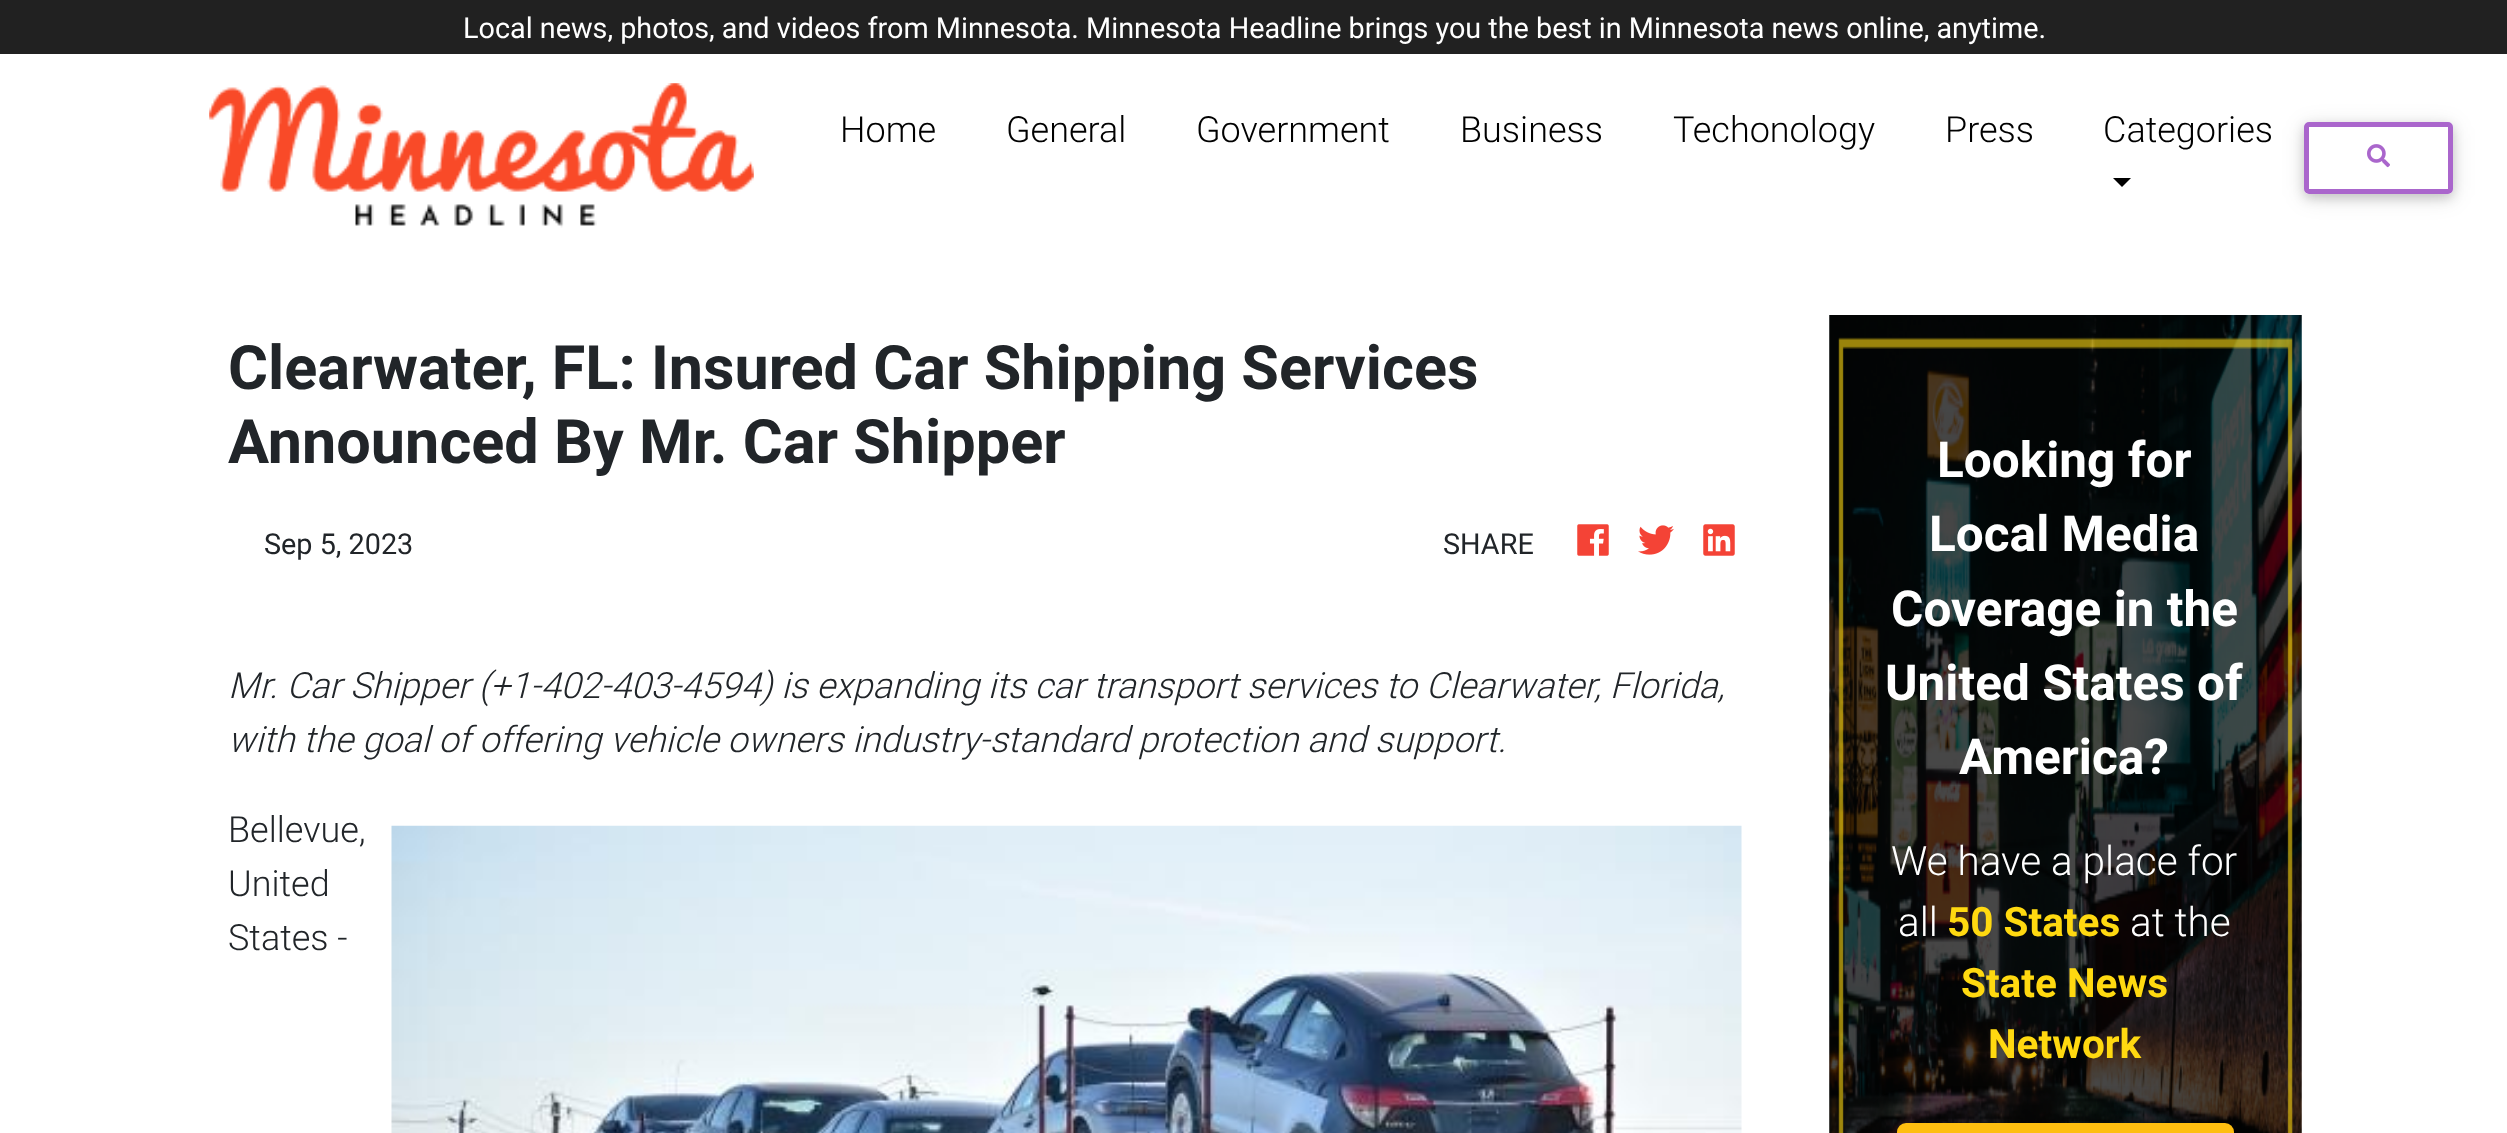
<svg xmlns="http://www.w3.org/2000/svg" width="2507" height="1133">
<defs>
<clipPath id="clip1"><path d="M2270 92h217v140h-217zm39 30h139c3 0 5 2 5 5v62c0 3-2 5-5 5h-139c-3 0-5-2-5-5v-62c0-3 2-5 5-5z" clip-rule="evenodd"/></clipPath>
<clipPath id="clip2"><path d="M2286 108h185v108h-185zm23 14h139c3 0 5 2 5 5v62c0 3-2 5-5 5h-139c-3 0-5-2-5-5v-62c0-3 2-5 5-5z" clip-rule="evenodd"/></clipPath>
</defs>
<rect width="100%" height="100%" fill="#fff"/>
<rect width="2507" height="54" fill="#212121"/>
<text x="463" y="38" style="font-family:Roboto;font-size:28.8px;fill:#fff">Local news, photos, and videos from Minnesota. Minnesota Headline brings you the best in Minnesota news online, anytime.</text>
<image x="209" y="83" width="545" height="145" href="media/1.png"/>
<text x="840" y="142" style="font-family:Roboto;font-size:36px;font-weight:300;fill:#000">Home</text>
<text x="1006" y="142" style="font-family:Roboto;font-size:36px;font-weight:300;fill:#000">General</text>
<text x="1196" y="142" style="font-family:Roboto;font-size:36px;font-weight:300;fill:#000">Government</text>
<text x="1460" y="142" style="font-family:Roboto;font-size:36px;font-weight:300;fill:#000">Business</text>
<text x="1673" y="142" style="font-family:Roboto;font-size:36px;font-weight:300;fill:#000">Techonology</text>
<text x="1945" y="142" style="font-family:Roboto;font-size:36px;font-weight:300;fill:#000">Press</text>
<g clip-path="url(#clip1)">
<rect x="2304" y="126" width="149" height="72" rx="5" fill="#0000001f" filter="blur(11px)"/>
</g>
<text x="2103" y="142" style="font-family:Roboto;font-size:36px;font-weight:300;fill:#000">Categories</text>
<path d="M2113 178h18l-9 9z" fill="#000"/>
<g clip-path="url(#clip2)">
<rect x="2304" y="126" width="149" height="72" rx="5" fill="#00000029" filter="blur(5.5px)"/>
</g>
<rect x="2306.5" y="124.5" width="144" height="67" rx="2.5" fill="none" stroke="#a6c" stroke-width="5"/>
<image x="2367" y="144" width="23" height="24" href="media/2.png"/>
<text x="228" y="389" style="font-family:Roboto;font-size:61.2px;font-weight:bold;fill:#212529">Clearwater, FL: Insured Car Shipping Services</text>
<text x="228" y="463" style="font-family:Roboto;font-size:61.2px;font-weight:bold;fill:#212529">Announced By Mr. Car Shipper</text>
<text x="264" y="554" style="font-family:Roboto;font-size:28.8px;fill:#212529">Sep 5, 2023</text>
<text x="1443" y="554" style="font-family:Roboto;font-size:28.8px;fill:#212529">SHARE</text>
<image x="1577" y="524" width="32" height="32" href="media/3.png"/>
<image x="1638" y="525" width="36" height="30" href="media/4.png"/>
<image x="1703" y="524" width="32" height="32" href="media/5.png"/>
<text x="228" y="698" style="font-family:Roboto;font-size:36px;font-weight:300;font-style:italic;fill:#212529">Mr. Car Shipper (+1-402-403-4594) is expanding its car transport services to Clearwater, Florida,</text>
<text x="228" y="752" style="font-family:Roboto;font-size:36px;font-weight:300;font-style:italic;fill:#212529">with the goal of offering vehicle owners industry-standard protection and support.</text>
<text x="228" y="842" style="font-family:Roboto;font-size:36px;font-weight:300;fill:#212529">Bellevue,</text>
<text x="228" y="896" style="font-family:Roboto;font-size:36px;font-weight:300;fill:#212529">United</text>
<text x="228" y="950" style="font-family:Roboto;font-size:36px;font-weight:300;fill:#212529">States -</text>
<image x="391" y="825" width="1351" height="308" href="media/6.png"/>
<image x="1829" y="315" width="473" height="818" href="media/7.png"/>
<text x="1937" y="477" style="font-family:Roboto;font-size:49.5px;font-weight:bold;fill:#fff">Looking for</text>
<text x="1929" y="551" style="font-family:Roboto;font-size:49.5px;font-weight:bold;fill:#fff">Local Media</text>
<text x="1891" y="626" style="font-family:Roboto;font-size:49.5px;font-weight:bold;fill:#fff">Coverage in the</text>
<text x="1885" y="700" style="font-family:Roboto;font-size:49.5px;font-weight:bold;fill:#fff">United States of</text>
<text x="1959" y="774" style="font-family:Roboto;font-size:49.5px;font-weight:bold;fill:#fff">America?</text>
<text x="1891" y="875" style="font-family:Roboto;font-size:40.5px;font-weight:300;fill:#fff">We have a place for</text>
<text x="1898" y="936" style="font-family:Roboto;font-size:40.5px;font-weight:300;fill:#fff">all</text>
<text x="1947" y="936" style="font-family:Roboto;font-size:40.5px;font-weight:bold;fill:#ffd910">50 States</text>
<text x="2130" y="936" style="font-family:Roboto;font-size:40.5px;font-weight:300;fill:#fff">at the</text>
<text x="1961" y="997" style="font-family:Roboto;font-size:40.5px;font-weight:bold;fill:#ffd910">State News</text>
<text x="1988" y="1058" style="font-family:Roboto;font-size:40.5px;font-weight:bold;fill:#ffd910">Network</text>
<rect x="1897" y="1125" width="337" height="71" rx="9" fill="#00000040" filter="blur(18px)"/>
<rect x="1897" y="1123" width="337" height="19" rx="9" fill="#febe10"/>
</svg>
